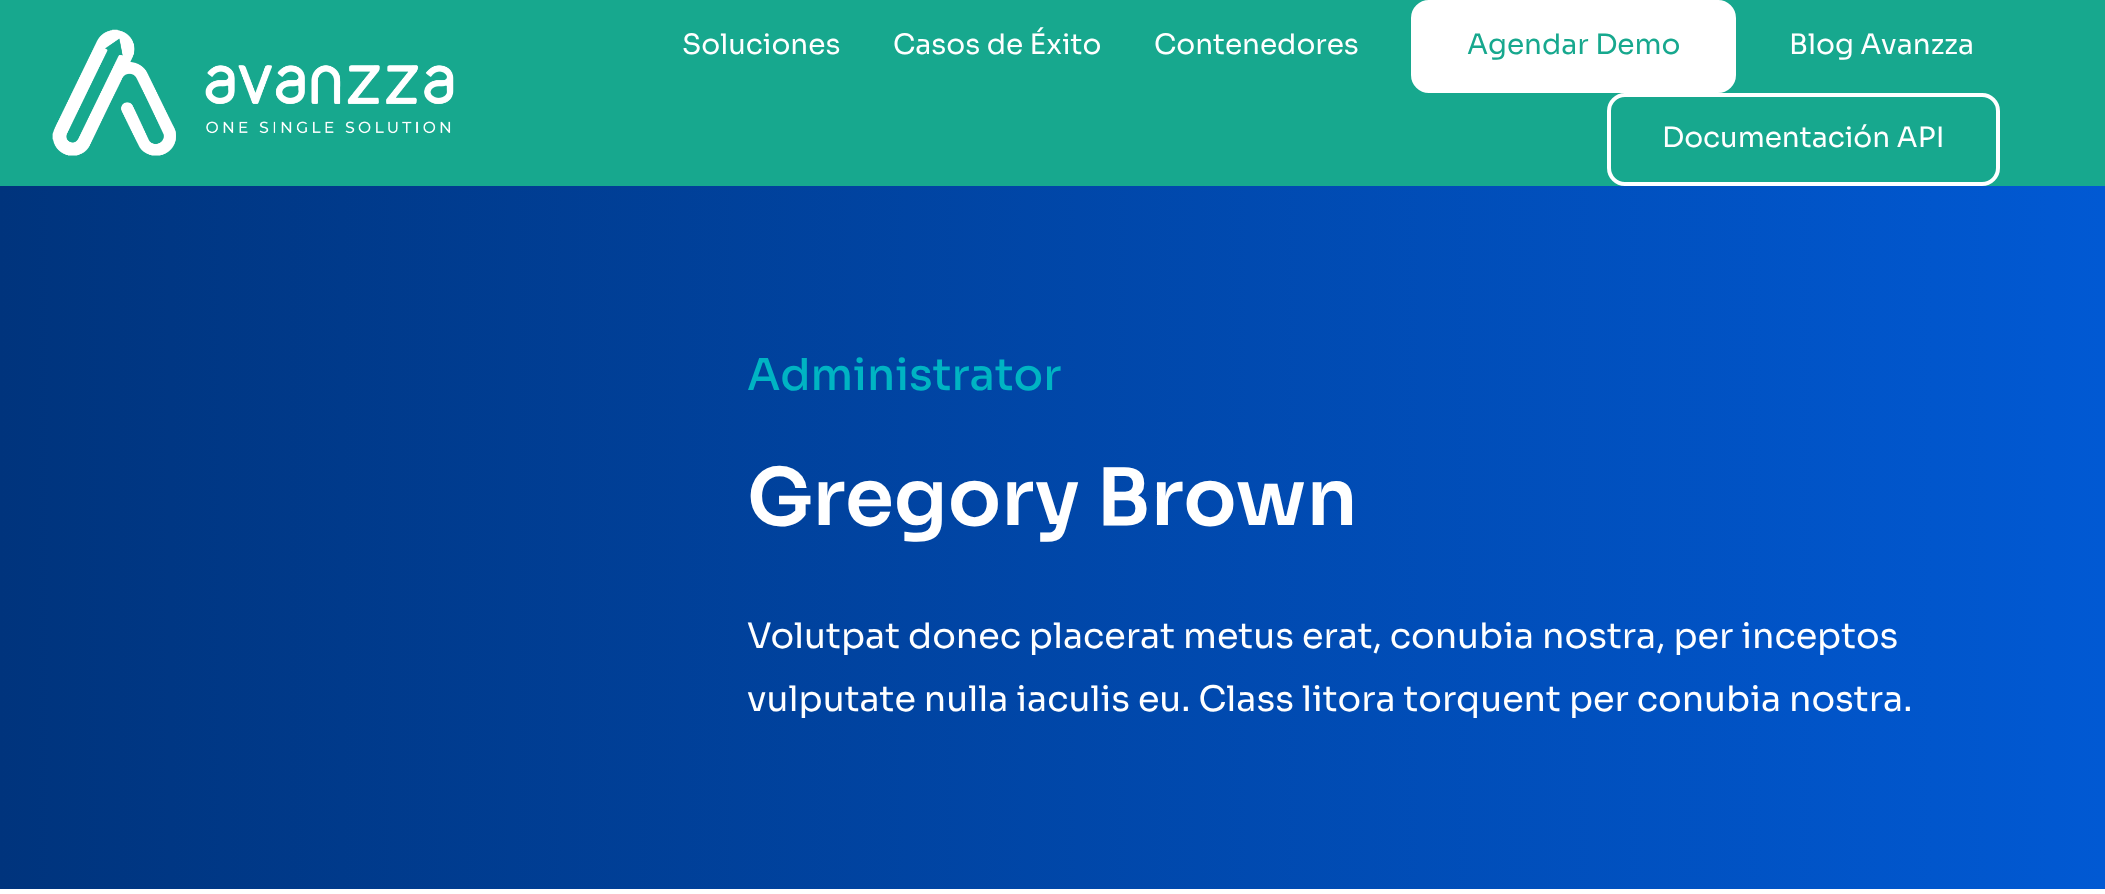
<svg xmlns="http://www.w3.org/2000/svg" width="2105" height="894">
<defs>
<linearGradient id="g1" gradientUnits="userSpaceOnUse" x1="0" y1="537" x2="2105" y2="537"><stop offset="0" stop-color="#00347d"/><stop offset="1" stop-color="#0159d3"/></linearGradient>
</defs>
<rect width="100%" height="100%" fill="#fff"/>
<rect width="2105" height="186" fill="#17a88e"/>
<image x="52" y="29" width="402" height="127" href="media/1.png"/>
<text x="682" y="54" style="font-family:Sora;font-size:28px;fill:#fff">Soluciones</text>
<text x="893" y="54" style="font-family:Sora;font-size:28px;fill:#fff">Casos de Éxito</text>
<text x="1154" y="54" style="font-family:Sora;font-size:28px;fill:#fff">Contenedores</text>
<rect x="1413" y="2" width="321" height="89" rx="16" fill="#fff" stroke="#fff" stroke-width="4"/>
<text x="1467" y="54" style="font-family:Sora;font-size:28px;fill:#17a88e">Agendar Demo</text>
<text x="1789" y="54" style="font-family:Sora;font-size:28px;fill:#fff">Blog Avanzza</text>
<rect x="1609" y="95" width="389" height="89" rx="16" fill="none" stroke="#fff" stroke-width="4"/>
<text x="1662" y="147" style="font-family:Sora;font-size:28px;fill:#fff">Documentación API</text>
<rect y="186" width="2105" height="703" fill="url(#g1)"/>
<text x="747" y="390" style="font-family:Sora;font-size:43.75px;font-weight:500;fill:#00b4c3">Administrator</text>
<text x="747" y="525" style="font-family:Sora;font-size:78.75px;font-weight:600;fill:#fff">Gregory Brown</text>
<text x="747" y="648" style="font-family:Sora;font-size:35px;fill:#fff">Volutpat donec placerat metus erat, conubia nostra, per inceptos</text>
<text x="747" y="711" style="font-family:Sora;font-size:35px;fill:#fff">vulputate nulla iaculis eu. Class litora torquent per conubia nostra.</text>
</svg>
